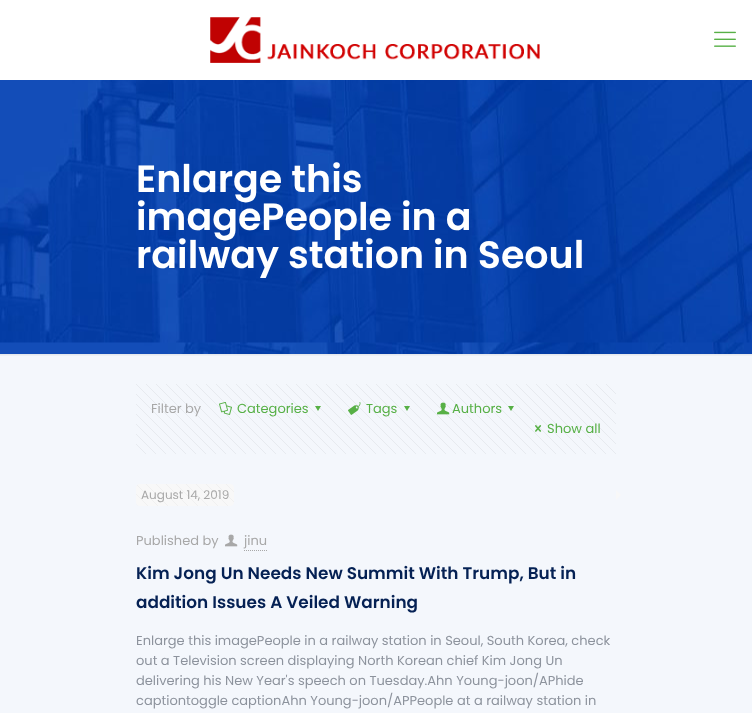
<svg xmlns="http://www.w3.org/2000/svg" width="752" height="713">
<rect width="100%" height="100%" fill="#f4f7fc"/>
<image x="0" y="80" width="752" height="274" href="media/1.png"/>
<rect width="752" height="80" fill="#fff"/>
<image x="210" y="17" width="330" height="46" href="media/2.png"/>
<image x="714" y="31" width="22" height="16" href="media/3.png"/>
<text x="136" y="192" style="font-family:Poppins;font-size:38px;font-weight:600;fill:#fff">Enlarge this</text>
<text x="136" y="230" style="font-family:Poppins;font-size:38px;font-weight:600;fill:#fff">imagePeople in a</text>
<text x="136" y="268" style="font-family:Poppins;font-size:38px;font-weight:600;fill:#fff">railway station in Seoul</text>
<image x="0" y="354" width="752" height="2" href="media/4.png"/>
<image x="136" y="384" width="480" height="70" href="media/5.png"/>
<text x="151" y="413" style="font-family:Poppins;font-size:13px;fill:#a8a8a8">Filter by</text>
<image x="219" y="402" width="13" height="13" href="media/6.png"/>
<text x="237" y="413" style="font-family:Poppins;font-size:13px;fill:#57b046">Categories</text>
<path d="M321 406l-3 5l-3-5z" fill="#57b046"/>
<image x="348" y="402" width="13" height="13" href="media/7.png"/>
<text x="366" y="413" style="font-family:Poppins;font-size:13px;fill:#57b046">Tags</text>
<path d="M410 406l-3 5l-3-5z" fill="#57b046"/>
<image x="437" y="402" width="13" height="13" href="media/8.png"/>
<text x="452" y="413" style="font-family:Poppins;font-size:13px;fill:#57b046">Authors</text>
<path d="M514 406l-3 5l-3-5z" fill="#57b046"/>
<image x="535" y="425" width="7" height="7" href="media/9.png"/>
<text x="547" y="433" style="font-family:Poppins;font-size:13px;fill:#57b046">Show all</text>
<rect x="136" y="484" width="98" height="22" rx="4" fill="#f8f8f8"/>
<image x="136" y="484" width="98" height="22" href="media/10.png"/>
<text x="141" y="499" style="font-family:Poppins;font-size:12px;fill:#a8a8a8">August 14, 2019</text>
<path d="M616 500v-10l5 5z" fill="#f8f8f8"/>
<text x="136" y="545" style="font-family:Poppins;font-size:13px;fill:#a8a8a8">Published by</text>
<image x="225" y="534" width="13" height="13" href="media/11.png"/>
<text x="244" y="545" style="font-family:Poppins;font-size:13px;fill:#a8a8a8">jinu</text>
<path d="M244 550.5h23" fill="none" stroke="#a8a8a8" stroke-dasharray="1 1"/>
<text x="136" y="579" style="font-family:Poppins;font-size:16.9px;font-weight:600;fill:#052154">Kim Jong Un Needs New Summit With Trump, But in</text>
<text x="136" y="608" style="font-family:Poppins;font-size:16.9px;font-weight:600;fill:#052154">addition Issues A Veiled Warning</text>
<text x="136" y="645" style="font-family:Poppins;font-size:13px;fill:#8d939d">Enlarge this imagePeople in a railway station in Seoul, South Korea, check</text>
<text x="136" y="665" style="font-family:Poppins;font-size:13px;fill:#8d939d">out a Television screen displaying North Korean chief Kim Jong Un</text>
<text x="136" y="685" style="font-family:Poppins;font-size:13px;fill:#8d939d">delivering his New Year's speech on Tuesday.Ahn Young-joon/APhide</text>
<text x="136" y="705" style="font-family:Poppins;font-size:13px;fill:#8d939d">captiontoggle captionAhn Young-joon/APPeople at a railway station in</text>
</svg>
